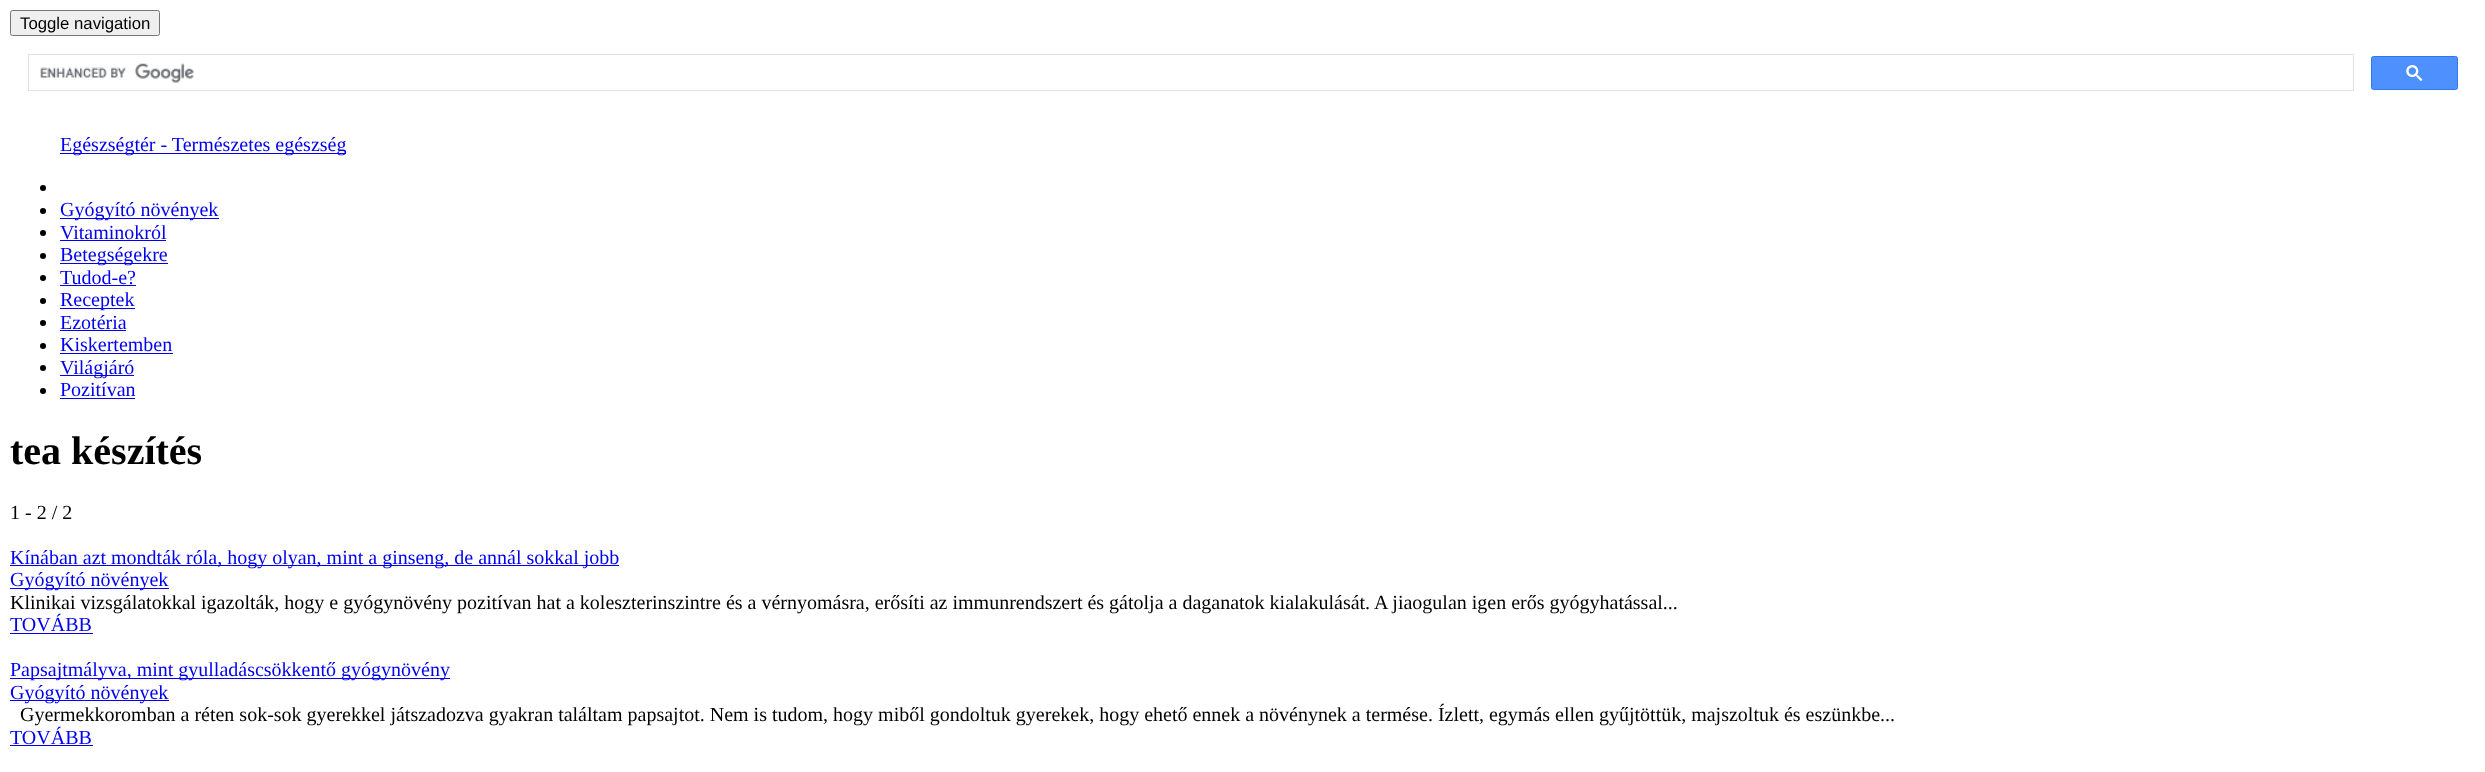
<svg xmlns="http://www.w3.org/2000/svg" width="2485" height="772">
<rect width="100%" height="100%" fill="#fff"/>
<rect x="10.5" y="10.5" width="149" height="25" rx="2" fill="#efefef" stroke="#767676"/>
<text x="20" y="29" style="font-family:Liberation Sans;font-size:16.75px;fill:#000">Toggle navigation</text>
<rect x="28.5" y="54.5" width="2325" height="36" fill="none" stroke="#dfe1e5"/>
<image x="40" y="63" width="154" height="20" href="media/1.png"/>
<rect x="2371.5" y="56.5" width="86" height="33" rx="2" fill="#4d90fe" stroke="#3079ed"/>
<image x="2406" y="65" width="17" height="16" href="media/2.png"/>
<rect x="60" y="153" width="286" height="1" fill="#00e"/>
<text x="60" y="151" style="font-family:Liberation Serif;font-size:20px;fill:#00e">Egészségtér - Természetes egészség</text>
<circle cx="43" cy="188" r="3" fill="#000"/>
<circle cx="43" cy="211" r="3" fill="#000"/>
<rect x="60" y="218" width="159" height="1" fill="#00e"/>
<text x="60" y="216" style="font-family:Liberation Serif;font-size:20px;fill:#00e">Gyógyító növények</text>
<circle cx="43" cy="233" r="3" fill="#000"/>
<text x="60" y="239" style="font-family:Liberation Serif;font-size:20px;fill:#00e">Vitaminokról</text>
<rect x="60" y="240" width="106" height="1" fill="#00e"/>
<circle cx="43" cy="256" r="3" fill="#000"/>
<rect x="60" y="263" width="108" height="1" fill="#00e"/>
<text x="60" y="261" style="font-family:Liberation Serif;font-size:20px;fill:#00e">Betegségekre</text>
<circle cx="43" cy="278" r="3" fill="#000"/>
<text x="60" y="284" style="font-family:Liberation Serif;font-size:20px;fill:#00e">Tudod-e?</text>
<rect x="60" y="285" width="76" height="1" fill="#00e"/>
<circle cx="43" cy="301" r="3" fill="#000"/>
<rect x="60" y="308" width="75" height="1" fill="#00e"/>
<text x="60" y="306" style="font-family:Liberation Serif;font-size:20px;fill:#00e">Receptek</text>
<circle cx="43" cy="323" r="3" fill="#000"/>
<text x="60" y="329" style="font-family:Liberation Serif;font-size:20px;fill:#00e">Ezotéria</text>
<rect x="60" y="330" width="66" height="1" fill="#00e"/>
<circle cx="43" cy="346" r="3" fill="#000"/>
<text x="60" y="351" style="font-family:Liberation Serif;font-size:20px;fill:#00e">Kiskertemben</text>
<rect x="60" y="353" width="113" height="1" fill="#00e"/>
<circle cx="43" cy="368" r="3" fill="#000"/>
<rect x="60" y="375" width="74" height="1" fill="#00e"/>
<text x="60" y="374" style="font-family:Liberation Serif;font-size:20px;fill:#00e">Világjáró</text>
<circle cx="43" cy="391" r="3" fill="#000"/>
<text x="60" y="396" style="font-family:Liberation Serif;font-size:20px;fill:#00e">Pozitívan</text>
<rect x="60" y="398" width="75" height="1" fill="#00e"/>
<text x="10" y="464" style="font-family:Liberation Serif;font-size:40px;font-weight:bold;fill:#000">tea készítés</text>
<text x="10" y="519" style="font-family:Liberation Serif;font-size:20px;fill:#000">1 - 2 / 2</text>
<rect x="10" y="565" width="609" height="1" fill="#00e"/>
<text x="10" y="564" style="font-family:Liberation Serif;font-size:20px;fill:#00e">Kínában azt mondták róla, hogy olyan, mint a ginseng, de annál sokkal jobb</text>
<rect x="10" y="588" width="159" height="1" fill="#00e"/>
<text x="10" y="586" style="font-family:Liberation Serif;font-size:20px;fill:#00e">Gyógyító növények</text>
<text x="10" y="609" style="font-family:Liberation Serif;font-size:20px;fill:#000">Klinikai vizsgálatokkal igazolták, hogy e gyógynövény pozitívan hat a koleszterinszintre és a vérnyomásra, erősíti az immunrendszert és gátolja a daganatok kialakulását. A jiaogulan igen erős gyógyhatással...</text>
<text x="10" y="631" style="font-family:Liberation Serif;font-size:20px;fill:#00e">TOVÁBB</text>
<rect x="10" y="633" width="83" height="1" fill="#00e"/>
<rect x="10" y="678" width="440" height="1" fill="#00e"/>
<text x="10" y="676" style="font-family:Liberation Serif;font-size:20px;fill:#00e">Papsajtmályva, mint gyulladáscsökkentő gyógynövény</text>
<rect x="10" y="700" width="159" height="1" fill="#00e"/>
<text x="10" y="699" style="font-family:Liberation Serif;font-size:20px;fill:#00e">Gyógyító növények</text>
<text x="20" y="721" style="font-family:Liberation Serif;font-size:20px;fill:#000">Gyermekkoromban a réten sok-sok gyerekkel játszadozva gyakran találtam papsajtot. Nem is tudom, hogy miből gondoltuk gyerekek, hogy ehető ennek a növénynek a termése. Ízlett, egymás ellen gyűjtöttük, majszoltuk és eszünkbe...</text>
<text x="10" y="744" style="font-family:Liberation Serif;font-size:20px;fill:#00e">TOVÁBB</text>
<rect x="10" y="745" width="83" height="1" fill="#00e"/>
</svg>
